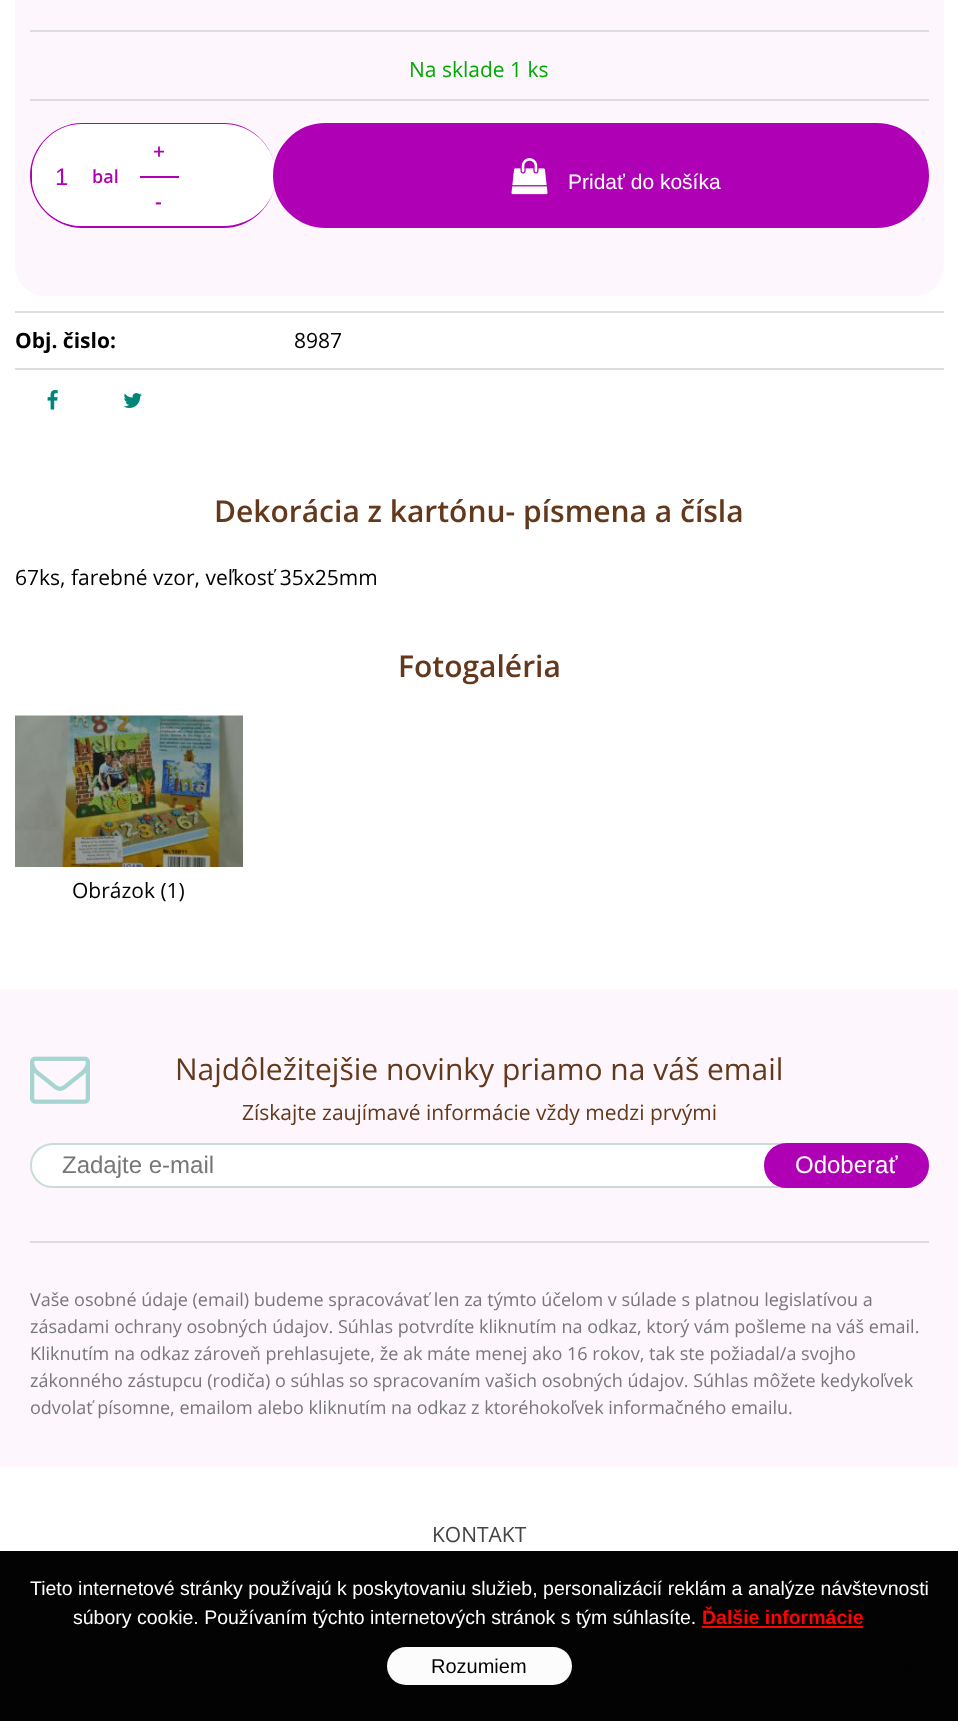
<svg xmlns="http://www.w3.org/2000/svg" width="958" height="1721">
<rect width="100%" height="100%" fill="#fff"/>
<rect y="1551" width="958" height="170" fill="#030303"/>
<rect x="15" y="-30" width="929" height="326" rx="30" fill="#fdf7fd"/>
<rect x="30" y="30" width="899" height="2" fill="#ddd"/>
<rect x="30" y="99" width="899" height="2" fill="#ddd"/>
<text x="409" y="77" style="font-family:Open Sans;font-size:21px;fill:#0a0">Na sklade 1 ks</text>
<path d="M82 124h142c28 0 52 23 52 52c0 28-24 50-52 50h-142c-28 0-50-22-50-50c0-29 22-52 50-52z" fill="#fff"/>
<path d="M82 123h142c28 0 52 24 52 53c0 28-24 52-52 52h-142c-28 0-52-24-52-52c0-29 24-53 52-53zm0 1h142c28 0 52 23 52 52c0 28-24 50-52 50h-142c-28 0-50-22-50-50c0-29 22-52 50-52z" fill="#af00b5" fill-rule="evenodd"/>
<rect x="140" y="176" width="39" height="2" fill="#af00b5"/>
<text x="153" y="159" style="font-family:Open Sans;font-size:21px;font-weight:600;fill:#af00b5">+</text>
<path d="M32 168c3-22 21-40 43-43h17v101h-10c-25 0-47-19-50-43z" fill="#fff"/>
<text x="55" y="185" style="font-family:Liberation Sans;font-size:24px;fill:#af00b5">1</text>
<text x="92" y="183" style="font-family:Open Sans;font-size:18px;font-weight:600;fill:#af00b5">bal</text>
<text x="155" y="209" style="font-family:Open Sans;font-size:21px;font-weight:600;fill:#af00b5">-</text>
<rect x="274" y="124" width="654" height="103" rx="51.5" fill="#af00b5" stroke="#af00b5" stroke-width="2"/>
<image x="511" y="158" width="37" height="37" href="media/1.png"/>
<text x="568" y="189" style="font-family:Liberation Sans;font-size:21px;fill:#fff">Pridať do košíka</text>
<rect x="15" y="368" width="929" height="2" fill="#ddd"/>
<rect x="15" y="311" width="929" height="2" fill="#ddd"/>
<text x="15" y="348" style="font-family:Open Sans;font-size:21px;font-weight:bold;fill:#000">Obj. čislo:</text>
<text x="294" y="348" style="font-family:Open Sans;font-size:21px;fill:#000">8987</text>
<image x="47" y="390" width="11" height="20" href="media/2.png"/>
<image x="123" y="393" width="19" height="15" href="media/3.png"/>
<text x="214" y="522" style="font-family:Open Sans;font-size:30px;font-weight:600;fill:#64381b">Dekorácia z kartónu- písmena a čísla</text>
<text x="15" y="585" style="font-family:Open Sans;font-size:21px;fill:#000">67ks, farebné vzor, veľkosť 35x25mm</text>
<text x="398" y="677" style="font-family:Open Sans;font-size:30px;font-weight:600;fill:#64381b">Fotogaléria</text>
<image x="15" y="715" width="228" height="152" href="media/4.png"/>
<text x="72" y="898" style="font-family:Open Sans;font-size:21px;fill:#000">Obrázok (1)</text>
<rect y="989" width="958" height="478" fill="#fdf7fd"/>
<image x="30" y="1056" width="60" height="48" href="media/5.png"/>
<text x="175" y="1080" style="font-family:Open Sans;font-size:30px;fill:#64381b">Najdôležitejšie novinky priamo na váš email</text>
<text x="242" y="1120" style="font-family:Open Sans;font-size:21px;fill:#64381b">Získajte zaujímavé informácie vždy medzi prvými</text>
<rect x="31" y="1144" width="897" height="43" rx="21.5" fill="#fff" stroke="#cadcd7" stroke-width="2"/>
<text x="62" y="1173" style="font-family:Liberation Sans;font-size:24px;fill:#777">Zadajte e-mail</text>
<rect x="765" y="1144" width="163" height="43" rx="21.5" fill="#af00b5" stroke="#af00b5" stroke-width="2"/>
<text x="795" y="1173" style="font-family:Liberation Sans;font-size:24px;fill:#fff">Odoberať</text>
<rect x="30" y="1241" width="899" height="2" fill="#ddd"/>
<text x="30" y="1306" style="font-family:Open Sans;font-size:18px;fill:#777">Vaše osobné údaje (email) budeme spracovávať len za týmto účelom v súlade s platnou legislatívou a</text>
<text x="30" y="1333" style="font-family:Open Sans;font-size:18px;fill:#777">zásadami ochrany osobných údajov. Súhlas potvrdíte kliknutím na odkaz, ktorý vám pošleme na váš email.</text>
<text x="30" y="1360" style="font-family:Open Sans;font-size:18px;fill:#777">Kliknutím na odkaz zároveň prehlasujete, že ak máte menej ako 16 rokov, tak ste požiadal/a svojho</text>
<text x="30" y="1387" style="font-family:Open Sans;font-size:18px;fill:#777">zákonného zástupcu (rodiča) o súhlas so spracovaním vašich osobných údajov. Súhlas môžete kedykoľvek</text>
<text x="30" y="1414" style="font-family:Open Sans;font-size:18px;fill:#777">odvolať písomne, emailom alebo kliknutím na odkaz z ktoréhokoľvek informačného emailu.</text>
<text x="432" y="1542" style="font-family:Open Sans;font-size:21px;fill:#444">KONTAKT</text>
<image x="897" y="1664" width="26" height="16" href="media/6.png"/>
<text x="30" y="1595" style="font-family:Liberation Sans;font-size:19.5px;fill:#fff">Tieto internetové stránky používajú k poskytovaniu služieb, personalizácií reklám a analýze návštevnosti</text>
<text x="73" y="1624" style="font-family:Liberation Sans;font-size:19.5px;fill:#fff">súbory cookie. Používaním týchto internetových stránok s tým súhlasíte.</text>
<text x="702" y="1624" style="font-family:Liberation Sans;font-size:19.5px;font-weight:bold;fill:#ff0303">Ďalšie informácie</text>
<rect x="702" y="1626" width="161" height="2" fill="#ff0303"/>
<rect x="387" y="1647" width="185" height="38" rx="19" fill="#fcfcfc"/>
<text x="431" y="1673" style="font-family:Liberation Sans;font-size:20px;fill:#000">Rozumiem</text>
</svg>
